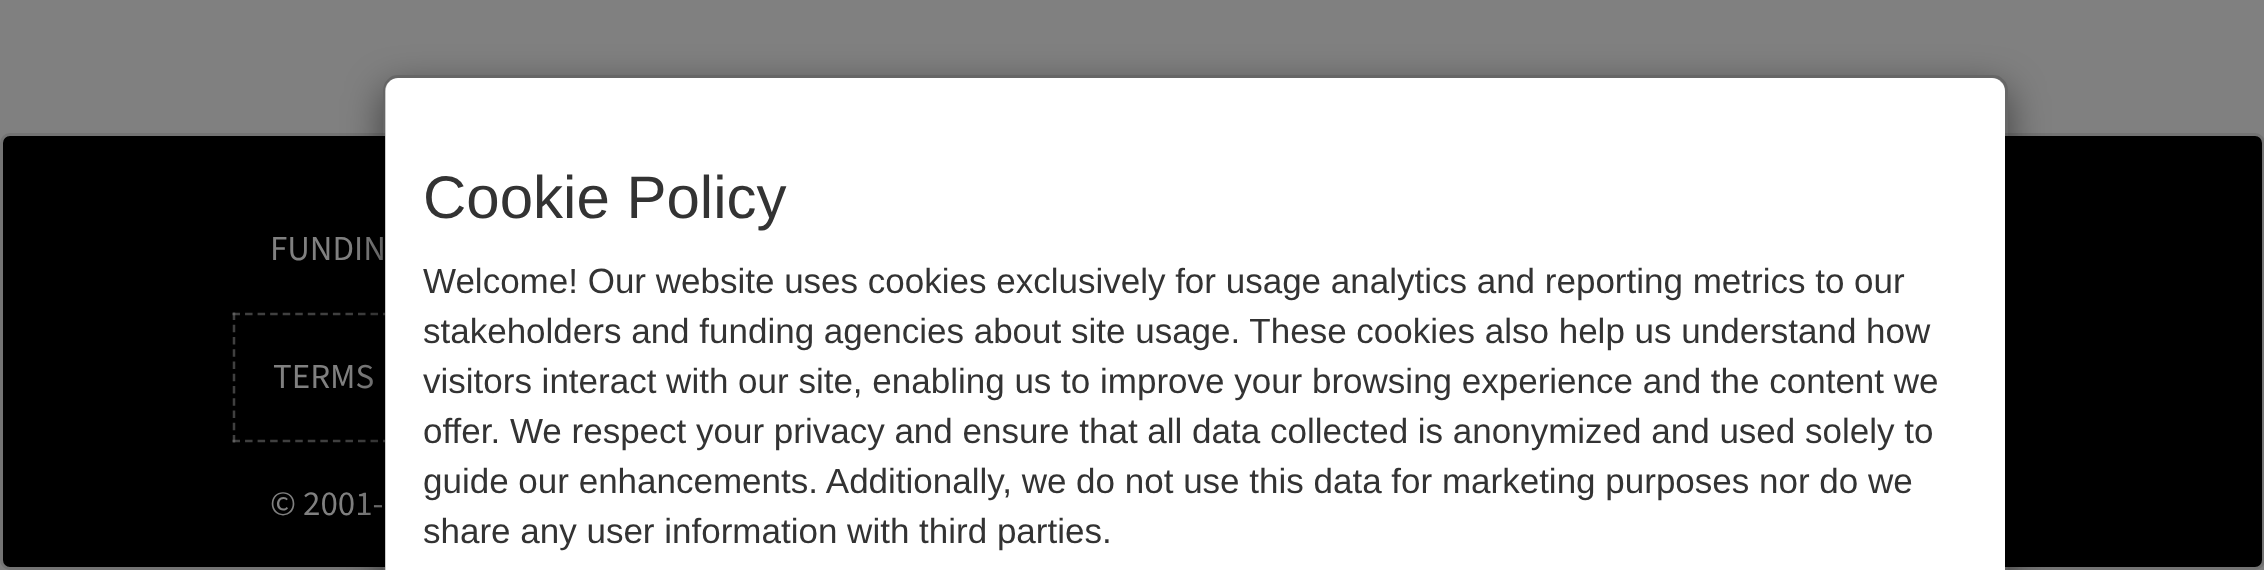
<svg xmlns="http://www.w3.org/2000/svg" width="2264" height="570">
<defs>
<clipPath id="clip1"><path d="M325 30h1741v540h-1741zm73 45h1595c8.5 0 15 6.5 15 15v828c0 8.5-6.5 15-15 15h-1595c-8.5 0-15-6.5-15-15v-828c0-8.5 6.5-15 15-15z" clip-rule="evenodd"/></clipPath>
</defs>
<rect width="100%" height="100%" fill="#808080"/>
<rect x="1.5" y="134.5" width="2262" height="434" rx="8.5" fill="#000" stroke="#747474" stroke-width="3"/>
<text x="270" y="260" style="font-family:'Source Sans 3';font-size:35px;font-weight:200;fill:#808080">FUNDIN</text>
<path d="M232.5 314h1512.5" fill="none" stroke="#404040" stroke-width="2.5" stroke-dasharray="7.5 5.05"/>
<path d="M232.5 441h1512.5" fill="none" stroke="#80808080" stroke-width="2.5" stroke-dasharray="7.5 5.05"/>
<path d="M234 312.5v130" fill="none" stroke="#80808080" stroke-width="2.5" stroke-dasharray="7.5 4.75"/>
<text x="273" y="388" style="font-family:'Source Sans 3';font-size:35px;font-weight:200;fill:#808080">TERMS</text>
<text x="270" y="515" style="font-family:'Source Sans 3';font-size:35px;font-weight:200;fill:#808080">© 2001-</text>
<g clip-path="url(#clip1)">
<rect x="383" y="88" width="1625" height="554" rx="15" fill="#00000080" filter="blur(19px)"/>
</g>
<path d="M398 78h1594c7 0 13 6 13 13v479h-1620v-479c0-7 6-13 13-13z" fill="#fff"/>
<rect x="384.5" y="76.5" width="1622" height="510" rx="13.5" fill="none" stroke="#00000033" stroke-width="3"/>
<text x="423" y="218" style="font-family:Liberation Sans;font-size:60px;fill:#333">Cookie Policy</text>
<text x="423" y="293" style="font-family:Liberation Sans;font-size:35px;fill:#333">Welcome! Our website uses cookies exclusively for usage analytics and reporting metrics to our</text>
<text x="423" y="343" style="font-family:Liberation Sans;font-size:35px;fill:#333">stakeholders and funding agencies about site usage. These cookies also help us understand how</text>
<text x="423" y="393" style="font-family:Liberation Sans;font-size:35px;fill:#333">visitors interact with our site, enabling us to improve your browsing experience and the content we</text>
<text x="423" y="443" style="font-family:Liberation Sans;font-size:35px;fill:#333">offer. We respect your privacy and ensure that all data collected is anonymized and used solely to</text>
<text x="423" y="493" style="font-family:Liberation Sans;font-size:35px;fill:#333">guide our enhancements. Additionally, we do not use this data for marketing purposes nor do we</text>
<text x="423" y="543" style="font-family:Liberation Sans;font-size:35px;fill:#333">share any user information with third parties.</text>
</svg>
